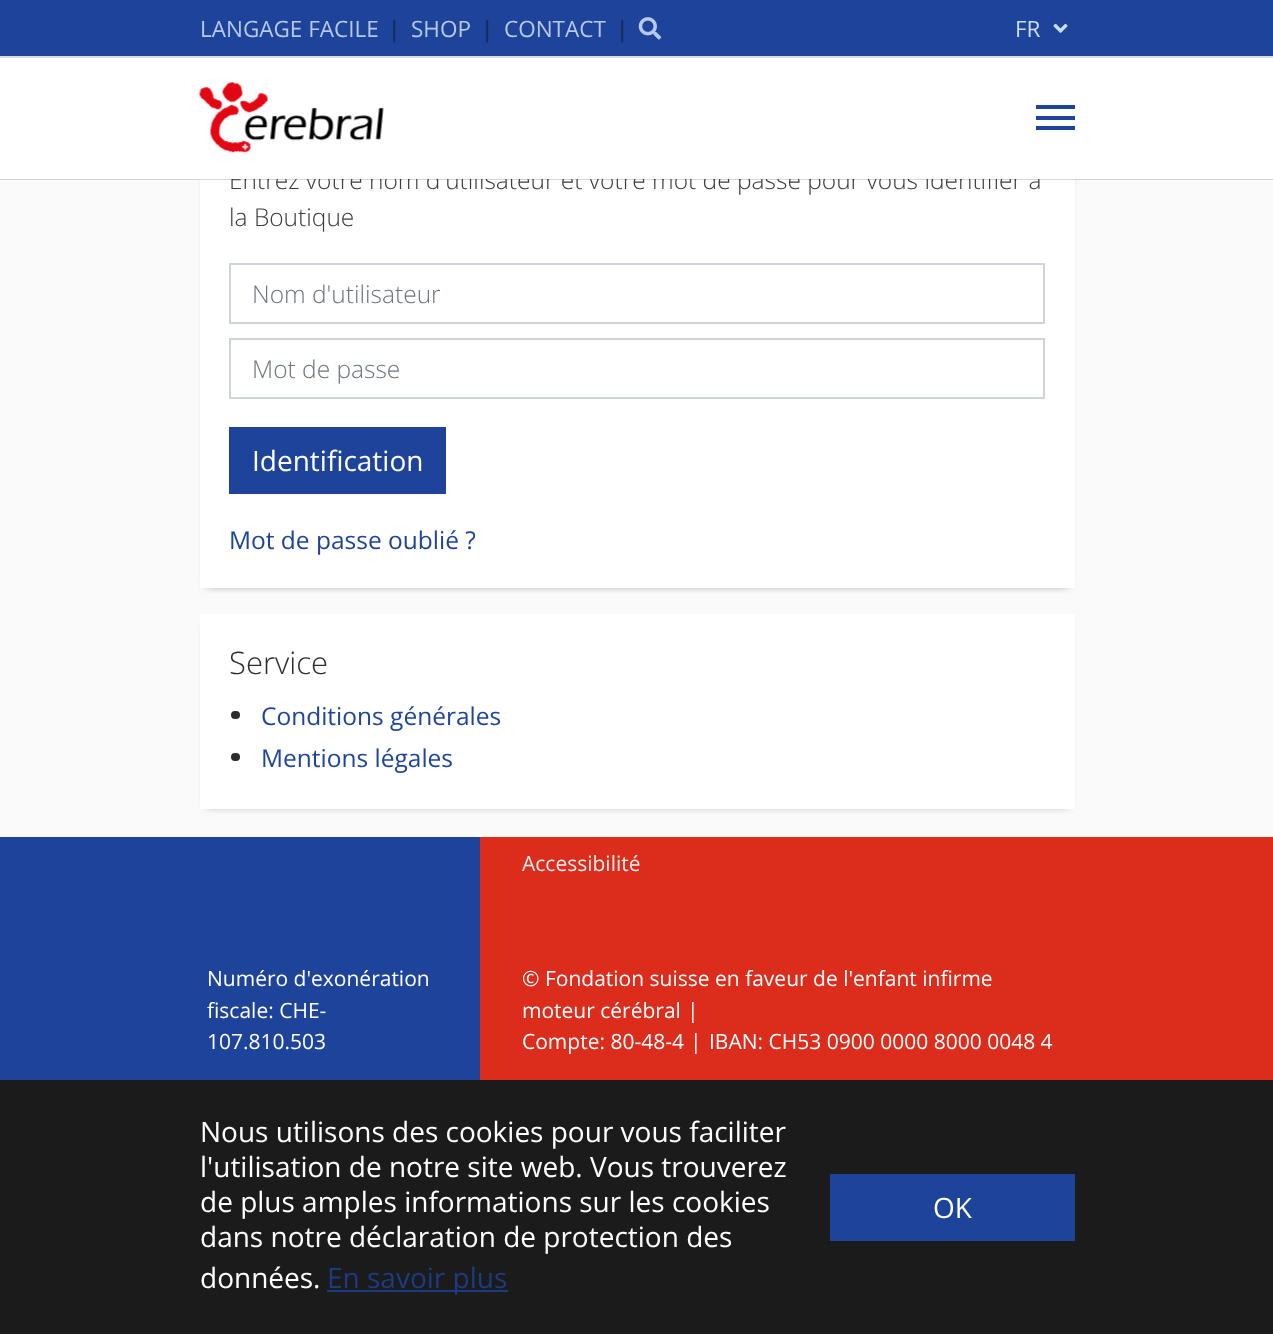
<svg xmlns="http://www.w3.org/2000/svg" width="1273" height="1334">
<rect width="100%" height="100%" fill="#1e439b"/>
<rect y="56" width="1273" height="2" fill="#d9d9d9"/>
<text x="200" y="37" style="font-family:Open Sans;font-size:22.5px;fill:#b7c9ed">LANGAGE FACILE</text>
<text x="388" y="37" style="font-family:Open Sans;font-size:22.5px;font-weight:600;fill:#172c53">|</text>
<text x="411" y="37" style="font-family:Open Sans;font-size:22.5px;fill:#b7c9ed">SHOP</text>
<text x="481" y="37" style="font-family:Open Sans;font-size:22.5px;font-weight:600;fill:#172c53">|</text>
<text x="504" y="37" style="font-family:Open Sans;font-size:22.5px;fill:#b7c9ed">CONTACT</text>
<text x="616" y="37" style="font-family:Open Sans;font-size:22.5px;font-weight:600;fill:#172c53">|</text>
<image x="638" y="17" width="24" height="23" href="media/1.png"/>
<text x="1015" y="37" style="font-family:Open Sans;font-size:22.5px;fill:#cadcff">FR</text>
<image x="1053" y="23" width="15" height="10" href="media/2.png"/>
<rect y="179" width="1273" height="658" fill="#fafafa"/>
<rect x="207" y="91" width="861" height="494" fill="#777" filter="blur(5px)"/>
<rect x="200" y="179" width="875" height="409" fill="#fff"/>
<text x="229" y="189" style="font-family:Open Sans;font-size:24.5px;font-weight:300;fill:#3b3b3b">Entrez votre nom d'utilisateur et votre mot de passe pour vous identifier à</text>
<rect y="179" width="1273" height="1" fill="#00000026"/>
<rect y="58" width="1273" height="121" fill="#fff"/>
<image x="199" y="82" width="185" height="71" href="media/3.png"/>
<rect x="1036" y="116" width="39" height="4" fill="#1e439b"/>
<rect x="1036" y="105" width="39" height="4" fill="#1e439b"/>
<rect x="1036" y="126" width="39" height="4" fill="#1e439b"/>
<text x="229" y="226" style="font-family:Open Sans;font-size:24.5px;font-weight:300;fill:#3b3b3b">la Boutique</text>
<rect x="230" y="264" width="814" height="59" fill="none" stroke="#ced4da" stroke-width="2"/>
<text x="252" y="303" style="font-family:Open Sans;font-size:24.5px;font-weight:300;fill:#6c757d">Nom d'utilisateur</text>
<rect x="230" y="339" width="814" height="59" fill="none" stroke="#ced4da" stroke-width="2"/>
<text x="252" y="378" style="font-family:Open Sans;font-size:24.5px;font-weight:300;fill:#6c757d">Mot de passe</text>
<rect x="229" y="427" width="217" height="67" fill="#1e439b"/>
<text x="252" y="471" style="font-family:Open Sans;font-size:28px;fill:#fff">Identification</text>
<text x="229" y="549" style="font-family:Open Sans;font-size:24.5px;fill:#1e439b">Mot de passe oublié ?</text>
<rect x="207" y="625" width="861" height="180" fill="#777" filter="blur(5px)"/>
<rect x="200" y="614" width="875" height="195" fill="#fff"/>
<text x="229" y="674" style="font-family:Open Sans;font-size:31px;font-weight:300;fill:#2b2b2b">Service</text>
<rect x="231" y="711" width="9" height="8" rx="4" fill="#2b2b2b"/>
<text x="261" y="725" style="font-family:Open Sans;font-size:24.5px;fill:#1e439b">Conditions générales</text>
<rect x="231" y="753" width="9" height="8" rx="4" fill="#2b2b2b"/>
<text x="261" y="767" style="font-family:Open Sans;font-size:24.5px;fill:#1e439b">Mentions légales</text>
<rect x="480" y="837" width="793" height="243" fill="#db2c1c"/>
<text x="522" y="871" style="font-family:Open Sans;font-size:21px;fill:#eee">Accessibilité</text>
<text x="207" y="986" style="font-family:Open Sans;font-size:21px;fill:#fff">Numéro d'exonération</text>
<text x="207" y="1018" style="font-family:Open Sans;font-size:21px;fill:#fff">fiscale: CHE-</text>
<text x="207" y="1049" style="font-family:Open Sans;font-size:21px;fill:#fff">107.810.503</text>
<text x="522" y="986" style="font-family:Open Sans;font-size:21px;fill:#fff">© Fondation suisse en faveur de l'enfant infirme</text>
<text x="522" y="1018" style="font-family:Open Sans;font-size:21px;fill:#fff">moteur cérébral</text>
<text x="687" y="1018" style="font-family:Open Sans;font-size:21px;fill:#fff">|</text>
<text x="522" y="1049" style="font-family:Open Sans;font-size:21px;fill:#fff">Compte: 80-48-4</text>
<text x="690" y="1049" style="font-family:Open Sans;font-size:21px;fill:#fff">|</text>
<text x="709" y="1049" style="font-family:Open Sans;font-size:21px;fill:#fff">IBAN: CH53 0900 0000 8000 0048 4</text>
<rect y="1080" width="1273" height="254" fill="#1b1b1b"/>
<text x="200" y="1142" style="font-family:Open Sans;font-size:28px;fill:#fff">Nous utilisons des cookies pour vous faciliter</text>
<text x="200" y="1177" style="font-family:Open Sans;font-size:28px;fill:#fff">l'utilisation de notre site web. Vous trouverez</text>
<text x="200" y="1212" style="font-family:Open Sans;font-size:28px;fill:#fff">de plus amples informations sur les cookies</text>
<text x="200" y="1247" style="font-family:Open Sans;font-size:28px;fill:#fff">dans notre déclaration de protection des</text>
<text x="200" y="1288" style="font-family:Open Sans;font-size:28px;fill:#fff">données.</text>
<rect x="327" y="1290" width="181" height="2" fill="#1d3b81"/>
<text x="327" y="1288" style="font-family:Open Sans;font-size:28px;fill:#1d3b81">En savoir plus</text>
<rect x="830" y="1174" width="245" height="67" fill="#1e439b"/>
<text x="933" y="1218" style="font-family:Open Sans;font-size:28px;fill:#fff">OK</text>
</svg>
